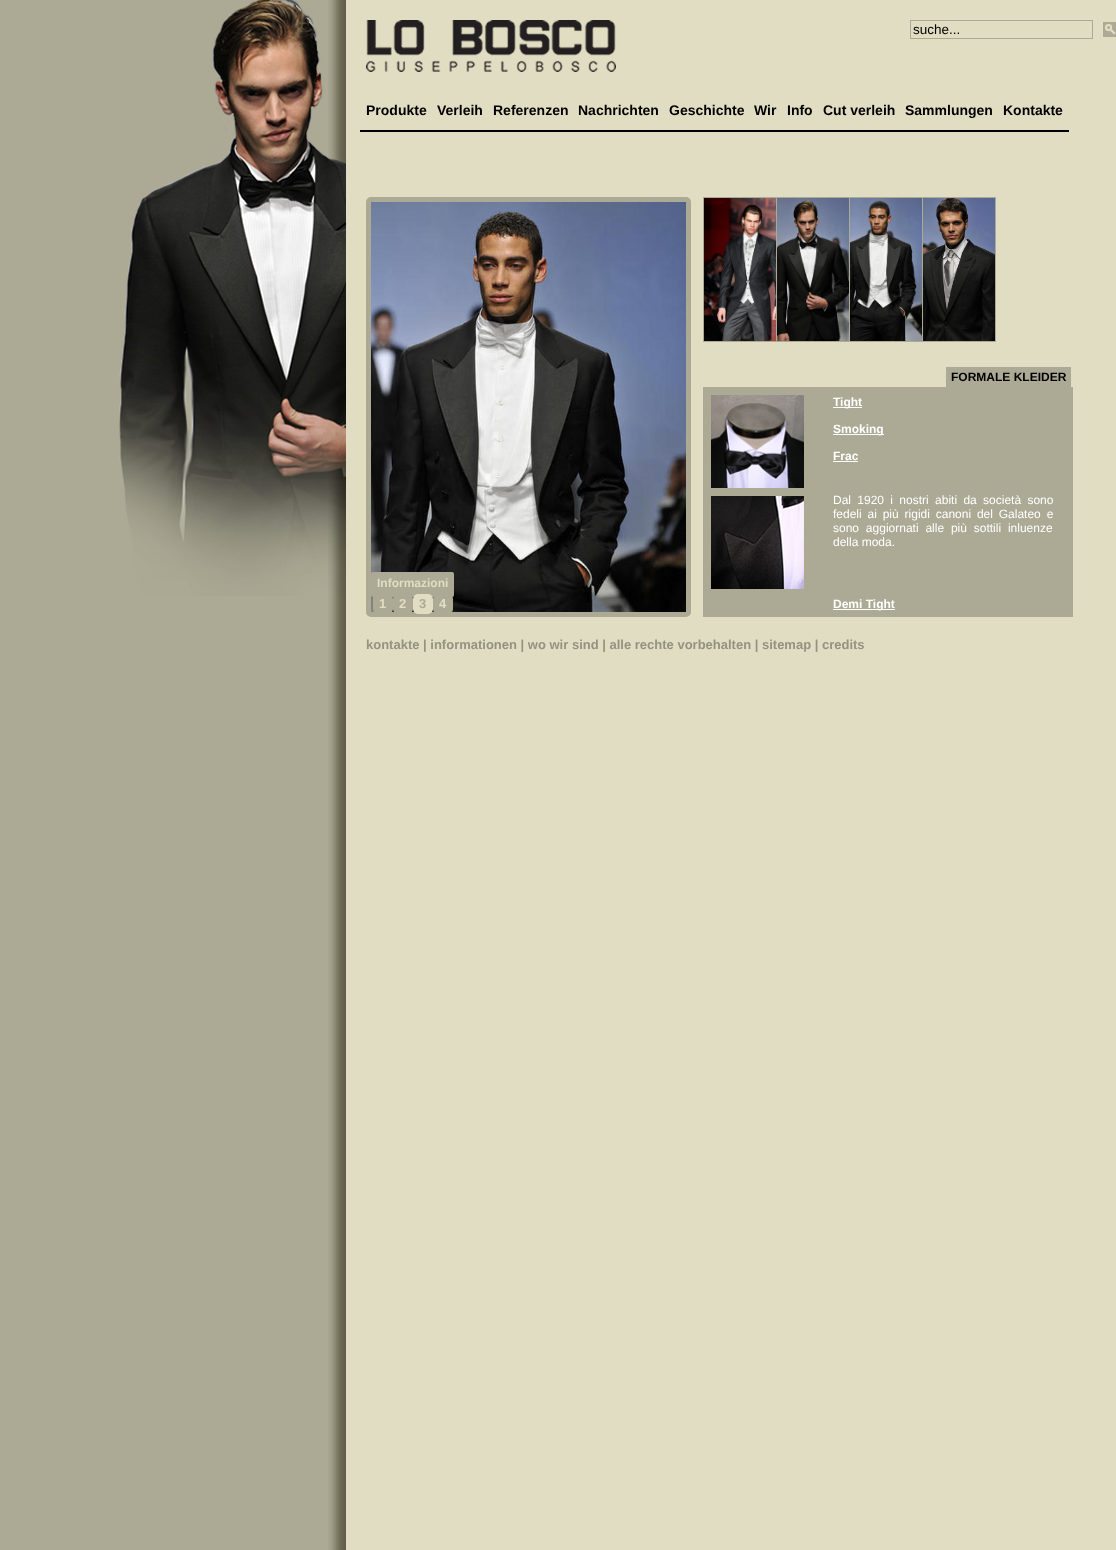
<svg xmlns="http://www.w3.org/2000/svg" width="1116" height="1550">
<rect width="100%" height="100%" fill="#aca994"/>
<image x="328" y="0" width="18" height="1550" href="media/1.png"/>
<image x="119" y="0" width="227" height="596" href="media/2.png"/>
<rect x="346" width="770" height="1550" fill="#e1ddc2"/>
<image x="366" y="20" width="250" height="52" href="media/3.png"/>
<rect x="910.5" y="20.5" width="182" height="18" fill="none" stroke="#aca994"/>
<text x="913" y="34" style="font-family:Liberation Sans;font-size:13.5px;fill:#000">suche...</text>
<image x="1103" y="22" width="13" height="15" href="media/4.png"/>
<text x="366" y="115" style="font-family:Liberation Sans;font-size:14px;font-weight:bold;fill:#000">Produkte</text>
<text x="437" y="115" style="font-family:Liberation Sans;font-size:14px;font-weight:bold;fill:#000">Verleih</text>
<text x="493" y="115" style="font-family:Liberation Sans;font-size:14px;font-weight:bold;fill:#000">Referenzen</text>
<text x="578" y="115" style="font-family:Liberation Sans;font-size:14px;font-weight:bold;fill:#000">Nachrichten</text>
<text x="669" y="115" style="font-family:Liberation Sans;font-size:14px;font-weight:bold;fill:#000">Geschichte</text>
<text x="754" y="115" style="font-family:Liberation Sans;font-size:14px;font-weight:bold;fill:#000">Wir</text>
<text x="787" y="115" style="font-family:Liberation Sans;font-size:14px;font-weight:bold;fill:#000">Info</text>
<text x="823" y="115" style="font-family:Liberation Sans;font-size:14px;font-weight:bold;fill:#000">Cut verleih</text>
<text x="905" y="115" style="font-family:Liberation Sans;font-size:14px;font-weight:bold;fill:#000">Sammlungen</text>
<rect x="360" y="130" width="709" height="2" fill="#000"/>
<text x="1003" y="115" style="font-family:Liberation Sans;font-size:14px;font-weight:bold;fill:#000">Kontakte</text>
<rect x="368.5" y="199.5" width="320" height="415" rx="2.5" fill="none" stroke="#aca994" stroke-width="5"/>
<image x="371" y="202" width="315" height="410" href="media/5.png"/>
<rect x="371" y="572" width="83" height="25" rx="2" fill="#aca994"/>
<text x="377" y="587" style="font-family:Liberation Sans;font-size:12px;font-weight:bold;fill:#e1ddc2">Informazioni</text>
<rect x="373" y="594" width="20" height="20" rx="5" fill="#aca994"/>
<text x="379" y="608" style="font-family:Liberation Sans;font-size:13px;font-weight:bold;fill:#e1ddc2">1</text>
<rect x="393" y="594" width="20" height="20" rx="5" fill="#aca994"/>
<text x="399" y="608" style="font-family:Liberation Sans;font-size:13px;font-weight:bold;fill:#e1ddc2">2</text>
<rect x="413" y="594" width="20" height="20" rx="5" fill="#e1ddc2"/>
<text x="419" y="608" style="font-family:Liberation Sans;font-size:13px;font-weight:bold;fill:#aca994">3</text>
<rect x="433" y="594" width="20" height="20" rx="5" fill="#aca994"/>
<text x="439" y="608" style="font-family:Liberation Sans;font-size:13px;font-weight:bold;fill:#e1ddc2">4</text>
<image x="704" y="198" width="72" height="143" href="media/6.png"/>
<rect x="922" y="197" width="74" height="1" fill="#aca994"/>
<rect x="995" y="197" width="1" height="145" fill="#aca994"/>
<rect x="922" y="341" width="74" height="1" fill="#aca994"/>
<rect x="922" y="197" width="1" height="145" fill="#aca994"/>
<rect x="849" y="197" width="74" height="1" fill="#aca994"/>
<rect x="849" y="341" width="74" height="1" fill="#aca994"/>
<rect x="849" y="197" width="1" height="145" fill="#aca994"/>
<rect x="776" y="197" width="74" height="1" fill="#aca994"/>
<rect x="776" y="341" width="74" height="1" fill="#aca994"/>
<rect x="776" y="197" width="1" height="145" fill="#aca994"/>
<rect x="703" y="197" width="74" height="1" fill="#aca994"/>
<rect x="703" y="341" width="74" height="1" fill="#aca994"/>
<rect x="703" y="197" width="1" height="145" fill="#aca994"/>
<image x="777" y="198" width="72" height="143" href="media/7.png"/>
<image x="850" y="198" width="72" height="143" href="media/8.png"/>
<image x="923" y="198" width="72" height="143" href="media/9.png"/>
<rect x="946" y="367" width="125" height="20" fill="#aca994"/>
<text x="951" y="381" style="font-family:Liberation Sans;font-size:12px;font-weight:bold;fill:#000">FORMALE KLEIDER</text>
<rect x="703" y="387" width="370" height="230" fill="#aca994"/>
<image x="711" y="395" width="93" height="93" href="media/10.png"/>
<rect x="833" y="407" width="29" height="1" fill="#fff"/>
<text x="833" y="406" style="font-family:Liberation Sans;font-size:12px;font-weight:bold;fill:#fff">Tight</text>
<rect x="833" y="434" width="51" height="1" fill="#fff"/>
<text x="833" y="433" style="font-family:Liberation Sans;font-size:12px;font-weight:bold;fill:#fff">Smoking</text>
<text x="833" y="460" style="font-family:Liberation Sans;font-size:12px;font-weight:bold;fill:#fff">Frac</text>
<rect x="833" y="461" width="25" height="1" fill="#fff"/>
<image x="711" y="496" width="93" height="93" href="media/11.png"/>
<text x="833" y="504" word-spacing="3" style="font-family:Liberation Sans;font-size:12px;fill:#fff">Dal 1920 i nostri abiti da società sono</text>
<text x="833" y="518" word-spacing="2.5" style="font-family:Liberation Sans;font-size:12px;fill:#fff">fedeli ai più rigidi canoni del Galateo e</text>
<text x="833" y="532" word-spacing="3.5" style="font-family:Liberation Sans;font-size:12px;fill:#fff">sono aggiornati alle più sottili inluenze</text>
<text x="833" y="546" style="font-family:Liberation Sans;font-size:12px;fill:#fff">della moda.</text>
<rect x="833" y="609" width="62" height="1" fill="#fff"/>
<text x="833" y="608" style="font-family:Liberation Sans;font-size:12px;font-weight:bold;fill:#fff">Demi Tight</text>
<text x="366" y="649" style="font-family:Liberation Sans;font-size:13px;font-weight:bold;fill:#949280">kontakte | informationen | wo wir sind | alle rechte vorbehalten | sitemap | credits</text>
</svg>
